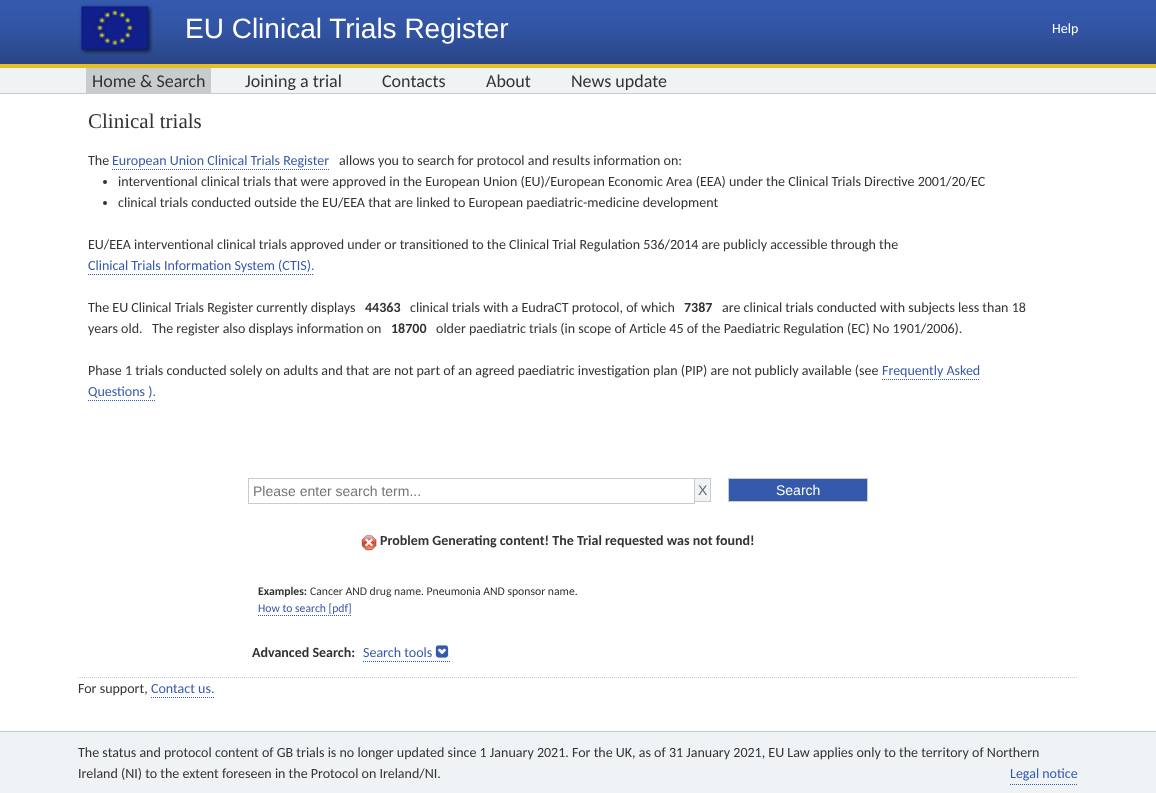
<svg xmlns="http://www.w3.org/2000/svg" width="1156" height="793">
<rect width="100%" height="100%" fill="#fff"/>
<image x="0" y="0" width="1156" height="93" href="media/1.png"/>
<rect y="93" width="1156" height="1" fill="#c8cccd"/>
<image x="79" y="4" width="74" height="51" href="media/2.png"/>
<text x="185" y="38" style="font-family:Liberation Sans;font-size:28px;fill:#fff">EU Clinical Trials Register</text>
<text x="1052" y="33" style="font-family:Carlito;font-size:14px;fill:#fff">Help</text>
<path d="M1052 37.5h26" fill="none" stroke="#3559ad" stroke-dasharray="1 1"/>
<rect x="86" y="68" width="125" height="25" fill="#c8cccd"/>
<text x="92" y="87" style="font-family:Carlito;font-size:18px;fill:#333">Home &amp; Search</text>
<text x="245" y="87" style="font-family:Carlito;font-size:18px;fill:#333">Joining a trial</text>
<text x="382" y="87" style="font-family:Carlito;font-size:18px;fill:#333">Contacts</text>
<text x="486" y="87" style="font-family:Carlito;font-size:18px;fill:#333">About</text>
<text x="571" y="87" style="font-family:Carlito;font-size:18px;fill:#333">News update</text>
<text x="88" y="128" style="font-family:Liberation Serif;font-size:21px;fill:#333">Clinical trials</text>
<text x="88" y="165" style="font-family:Carlito;font-size:14px;fill:#333">The</text>
<text x="112" y="165" style="font-family:Carlito;font-size:14px;fill:#3559ad">European Union Clinical Trials Register</text>
<path d="M112 169.5h217" fill="none" stroke="#3559ad" stroke-dasharray="1 1"/>
<text x="339" y="165" style="font-family:Carlito;font-size:14px;fill:#333">allows you to search for protocol and results information on:</text>
<circle cx="105" cy="182" r="2" fill="#333"/>
<text x="118" y="186" style="font-family:Carlito;font-size:14px;fill:#333">interventional clinical trials that were approved in the European Union (EU)/European Economic Area (EEA) under the Clinical Trials Directive 2001/20/EC</text>
<circle cx="105" cy="203" r="2" fill="#333"/>
<text x="118" y="207" style="font-family:Carlito;font-size:14px;fill:#333">clinical trials conducted outside the EU/EEA that are linked to European paediatric-medicine development</text>
<text x="88" y="249" style="font-family:Carlito;font-size:14px;fill:#333">EU/EEA interventional clinical trials approved under or transitioned to the Clinical Trial Regulation 536/2014 are publicly accessible through the</text>
<text x="88" y="270" style="font-family:Carlito;font-size:14px;fill:#3559ad">Clinical Trials Information System (CTIS).</text>
<path d="M88 274.5h226" fill="none" stroke="#3559ad" stroke-dasharray="1 1"/>
<text x="88" y="312" style="font-family:Carlito;font-size:14px;fill:#333">The EU Clinical Trials Register currently displays</text>
<text x="365" y="312" style="font-family:Carlito;font-size:14px;font-weight:bold;fill:#333">44363</text>
<text x="410" y="312" style="font-family:Carlito;font-size:14px;fill:#333">clinical trials with a EudraCT protocol, of which</text>
<text x="684" y="312" style="font-family:Carlito;font-size:14px;font-weight:bold;fill:#333">7387</text>
<text x="722" y="312" style="font-family:Carlito;font-size:14px;fill:#333">are clinical trials conducted with subjects less than 18</text>
<text x="88" y="333" style="font-family:Carlito;font-size:14px;fill:#333">years old.</text>
<text x="152" y="333" style="font-family:Carlito;font-size:14px;fill:#333">The register also displays information on</text>
<text x="391" y="333" style="font-family:Carlito;font-size:14px;font-weight:bold;fill:#333">18700</text>
<text x="436" y="333" style="font-family:Carlito;font-size:14px;fill:#333">older paediatric trials (in scope of Article 45 of the Paediatric Regulation (EC) No 1901/2006).</text>
<text x="88" y="375" style="font-family:Carlito;font-size:14px;fill:#333">Phase 1 trials conducted solely on adults and that are not part of an agreed paediatric investigation plan (PIP) are not publicly available (see</text>
<text x="882" y="375" style="font-family:Carlito;font-size:14px;fill:#3559ad">Frequently Asked</text>
<path d="M882 379.5h98" fill="none" stroke="#3559ad" stroke-dasharray="1 1"/>
<text x="88" y="396" style="font-family:Carlito;font-size:14px;fill:#3559ad">Questions ).</text>
<path d="M88 400.5h68" fill="none" stroke="#3559ad" stroke-dasharray="1 1"/>
<rect x="248.5" y="478.5" width="446" height="25" fill="none" stroke="#c8cccd"/>
<text x="253" y="496" style="font-family:Liberation Sans;font-size:14px;fill:#757575">Please enter search term...</text>
<rect x="695" y="479" width="15" height="22" fill="#eff3f5"/>
<rect x="695" y="478" width="16" height="1" fill="#c8cccd"/>
<rect x="710" y="478" width="1" height="24" fill="#c8cccd"/>
<rect x="695" y="501" width="16" height="1" fill="#c8cccd"/>
<text x="698" y="495" style="font-family:Liberation Sans;font-size:14px;fill:#666">X</text>
<rect x="728.5" y="478.5" width="139" height="23" fill="#3559ad" stroke="#c8cccd"/>
<text x="776" y="495" style="font-family:Liberation Sans;font-size:14px;fill:#fff">Search</text>
<image x="361" y="535" width="16" height="16" href="media/3.png"/>
<text x="380" y="545" style="font-family:Carlito;font-size:14px;font-weight:bold;fill:#333">Problem Generating content! The Trial requested was not found!</text>
<text x="258" y="595" style="font-family:Carlito;font-size:11.7px;font-weight:bold;fill:#333">Examples:</text>
<text x="310" y="595" style="font-family:Carlito;font-size:11.7px;fill:#333">Cancer AND drug name. Pneumonia AND sponsor name.</text>
<text x="258" y="612" style="font-family:Carlito;font-size:11.7px;fill:#3559ad">How to search [pdf]</text>
<path d="M258 615.5h93" fill="none" stroke="#3559ad" stroke-dasharray="1 1"/>
<text x="252" y="657" style="font-family:Carlito;font-size:14px;font-weight:bold;fill:#333">Advanced Search:</text>
<text x="363" y="657" style="font-family:Carlito;font-size:14px;fill:#3559ad">Search tools</text>
<path d="M363 661.5h87" fill="none" stroke="#3559ad" stroke-dasharray="1 1"/>
<image x="435" y="645" width="14" height="13" href="media/4.png"/>
<path d="M78 677.5h1000" fill="none" stroke="#c8cccd" stroke-dasharray="1 1"/>
<text x="78" y="693" style="font-family:Carlito;font-size:14px;fill:#333">For support,</text>
<text x="151" y="693" style="font-family:Carlito;font-size:14px;fill:#3559ad">Contact us.</text>
<path d="M151 697.5h63" fill="none" stroke="#3559ad" stroke-dasharray="1 1"/>
<rect y="732" width="1156" height="61" fill="#eff3f5"/>
<rect y="731" width="1156" height="1" fill="#c8cccd"/>
<text x="78" y="757" style="font-family:Carlito;font-size:14px;fill:#333">The status and protocol content of GB trials is no longer updated since 1 January 2021. For the UK, as of 31 January 2021, EU Law applies only to the territory of Northern</text>
<text x="78" y="778" style="font-family:Carlito;font-size:14px;fill:#333">Ireland (NI) to the extent foreseen in the Protocol on Ireland/NI.</text>
<path d="M1010 784.5h68" fill="none" stroke="#3559ad" stroke-dasharray="1 1"/>
<text x="1010" y="778" style="font-family:Carlito;font-size:14px;fill:#3559ad">Legal notice</text>
</svg>
